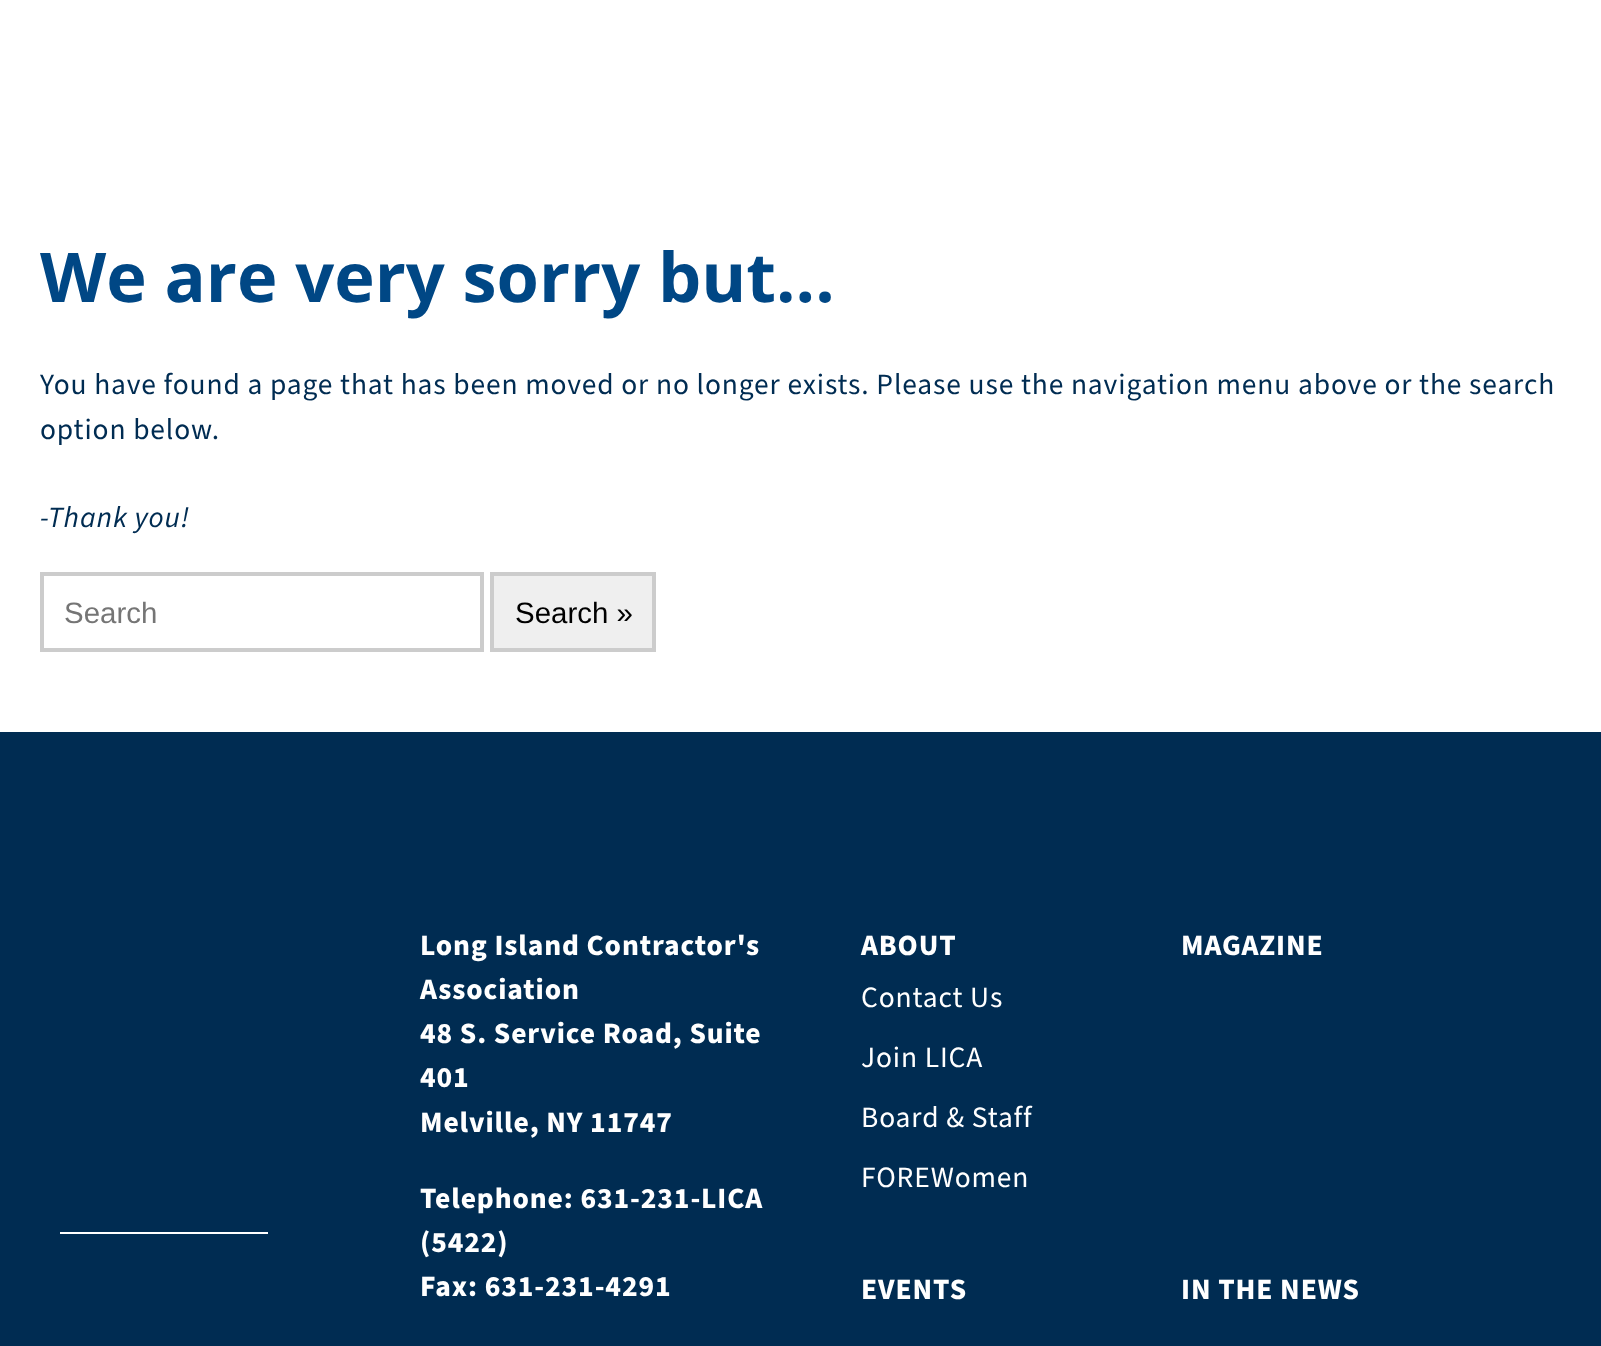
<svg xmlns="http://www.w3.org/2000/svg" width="1601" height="1346">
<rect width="100%" height="100%" fill="#fff"/>
<text x="40" y="302" style="font-family:Open Sans;font-size:68.5px;font-weight:bold;fill:#004785">We are very sorry but...</text>
<text x="40" y="394" style="font-family:Source Sans Pro;font-size:29.45px;letter-spacing:0.88px;fill:#002c52">You have found a page that has been moved or no longer exists. Please use the navigation menu above or the search</text>
<text x="40" y="439" style="font-family:Source Sans Pro;font-size:29.45px;letter-spacing:0.88px;fill:#002c52">option below.</text>
<text x="40" y="527" style="font-family:Source Sans Pro;font-size:29.45px;font-style:italic;letter-spacing:0.88px;fill:#002c52">-Thank you!</text>
<rect x="42" y="574" width="440" height="76" fill="none" stroke="#ccc" stroke-width="4"/>
<text x="64" y="623" style="font-family:Liberation Sans;font-size:29.45px;fill:#757575">Search</text>
<rect x="492" y="574" width="162" height="76" fill="#efefef" stroke="#ccc" stroke-width="4"/>
<text x="515" y="623" style="font-family:Liberation Sans;font-size:29.45px;fill:#000">Search »</text>
<rect y="732" width="1601" height="614" fill="#002c52"/>
<rect x="60" y="1232" width="208" height="2" fill="#fff"/>
<text x="420" y="955" style="font-family:Source Sans Pro;font-size:29.45px;font-weight:bold;letter-spacing:0.88px;fill:#fff">Long Island Contractor's</text>
<text x="420" y="999" style="font-family:Source Sans Pro;font-size:29.45px;font-weight:bold;letter-spacing:0.88px;fill:#fff">Association</text>
<text x="420" y="1043" style="font-family:Source Sans Pro;font-size:29.45px;font-weight:bold;letter-spacing:0.88px;fill:#fff">48 S. Service Road, Suite</text>
<text x="420" y="1087" style="font-family:Source Sans Pro;font-size:29.45px;font-weight:bold;letter-spacing:0.88px;fill:#fff">401</text>
<text x="420" y="1132" style="font-family:Source Sans Pro;font-size:29.45px;font-weight:bold;letter-spacing:0.88px;fill:#fff">Melville, NY 11747</text>
<text x="420" y="1208" style="font-family:Source Sans Pro;font-size:29.45px;font-weight:bold;letter-spacing:0.88px;fill:#fff">Telephone: 631-231-LICA</text>
<text x="420" y="1252" style="font-family:Source Sans Pro;font-size:29.45px;font-weight:bold;letter-spacing:0.88px;fill:#fff">(5422)</text>
<text x="420" y="1296" style="font-family:Source Sans Pro;font-size:29.45px;font-weight:bold;letter-spacing:0.88px;fill:#fff">Fax: 631-231-4291</text>
<text x="861" y="955" style="font-family:Source Sans Pro;font-size:29.45px;font-weight:bold;letter-spacing:0.88px;fill:#fff">ABOUT</text>
<text x="861" y="1007" style="font-family:Source Sans Pro;font-size:29.45px;letter-spacing:0.88px;fill:#fff">Contact Us</text>
<text x="861" y="1067" style="font-family:Source Sans Pro;font-size:29.45px;letter-spacing:0.88px;fill:#fff">Join LICA</text>
<text x="861" y="1127" style="font-family:Source Sans Pro;font-size:29.45px;letter-spacing:0.88px;fill:#fff">Board &amp; Staff</text>
<text x="861" y="1187" style="font-family:Source Sans Pro;font-size:29.45px;letter-spacing:0.88px;fill:#fff">FOREWomen</text>
<text x="1181" y="955" style="font-family:Source Sans Pro;font-size:29.45px;font-weight:bold;letter-spacing:0.88px;fill:#fff">MAGAZINE</text>
<text x="861" y="1299" style="font-family:Source Sans Pro;font-size:29.45px;font-weight:bold;letter-spacing:0.88px;fill:#fff">EVENTS</text>
<text x="1181" y="1299" style="font-family:Source Sans Pro;font-size:29.45px;font-weight:bold;letter-spacing:0.88px;fill:#fff">IN THE NEWS</text>
</svg>
